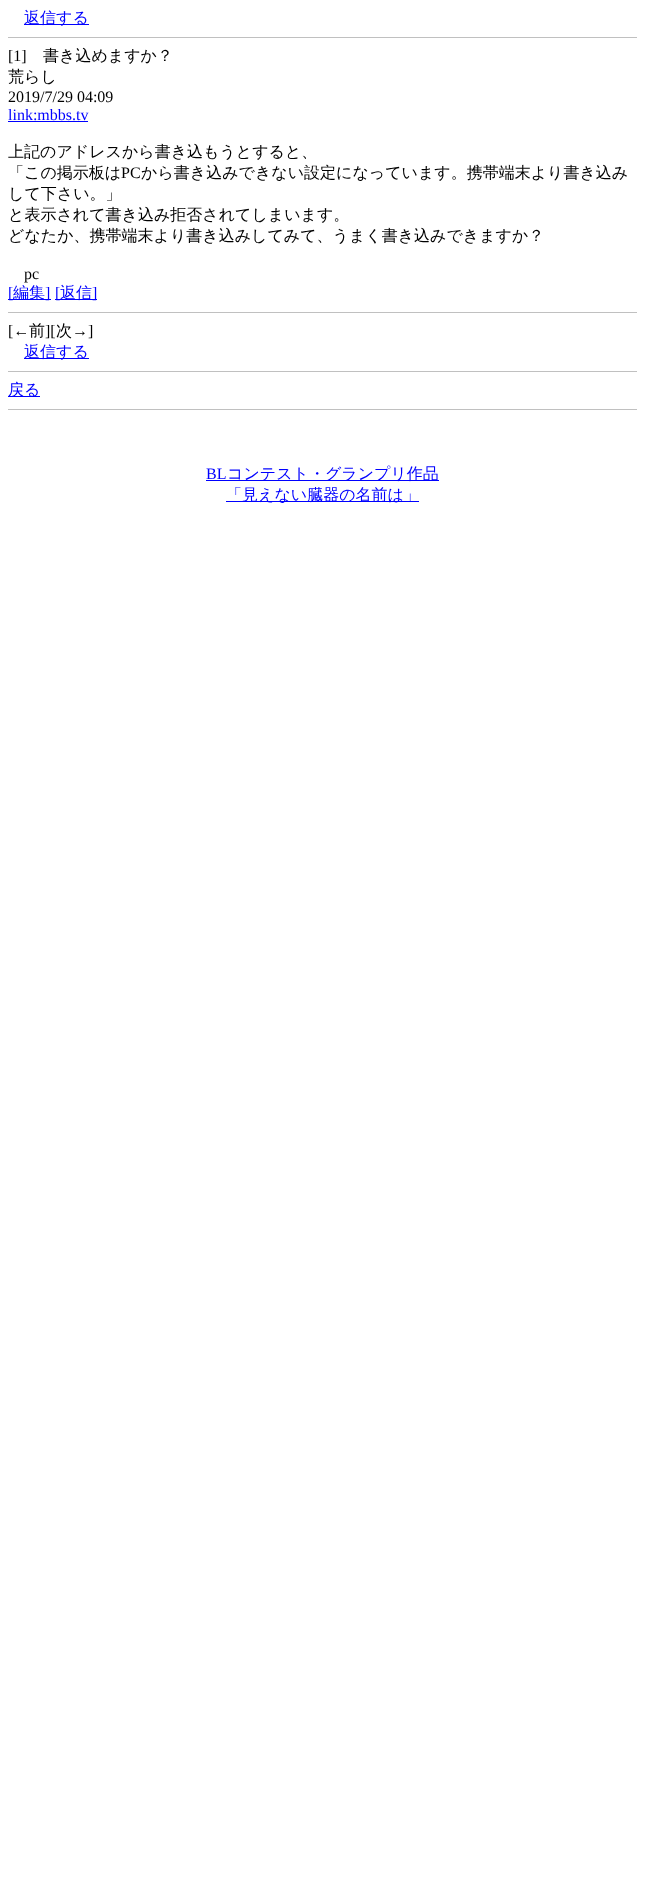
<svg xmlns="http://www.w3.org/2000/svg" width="645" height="1882">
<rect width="100%" height="100%" fill="#fff"/>
<rect x="24" y="24" width="65" height="1" fill="#00f"/>
<text x="24" y="23" style="font-family:WenQuanYi Zen Hei;font-size:16px;font-weight:500;fill:#00f">返信する</text>
<rect x="8" y="37" width="629" height="1" fill="#c0c0c0"/>
<text x="8" y="61" style="font-family:Liberation Serif;font-size:16px;fill:#000">[1]</text>
<text x="43" y="61" style="font-family:WenQuanYi Zen Hei;font-size:16px;font-weight:500;fill:#000">書き込めますか？</text>
<text x="8" y="82" style="font-family:WenQuanYi Zen Hei;font-size:16px;font-weight:500;fill:#000">荒らし</text>
<text x="8" y="102" style="font-family:Liberation Serif;font-size:16px;fill:#000">2019/7/29 04:09</text>
<text x="8" y="120" style="font-family:Liberation Serif;font-size:16px;fill:#00f">link:mbbs.tv</text>
<rect x="8" y="121" width="80" height="1" fill="#00f"/>
<text x="8" y="157" style="font-family:WenQuanYi Zen Hei;font-size:16px;font-weight:500;fill:#000">上記のアドレスから書き込もうとすると、</text>
<text x="8" y="178" style="font-family:WenQuanYi Zen Hei;font-size:16px;font-weight:500;fill:#000">「この掲示板は</text>
<text x="121" y="178" style="font-family:Liberation Serif;font-size:16px;fill:#000">PC</text>
<text x="141" y="178" style="font-family:WenQuanYi Zen Hei;font-size:16px;font-weight:500;fill:#000">から書き込みできない設定になっています。携帯端末より書き込み</text>
<text x="8" y="199" style="font-family:WenQuanYi Zen Hei;font-size:16px;font-weight:500;fill:#000">して下さい。」</text>
<text x="8" y="220" style="font-family:WenQuanYi Zen Hei;font-size:16px;font-weight:500;fill:#000">と表示されて書き込み拒否されてしまいます。</text>
<text x="8" y="241" style="font-family:WenQuanYi Zen Hei;font-size:16px;font-weight:500;fill:#000">どなたか、携帯端末より書き込みしてみて、うまく書き込みできますか？</text>
<text x="24" y="279" style="font-family:Liberation Serif;font-size:16px;fill:#000">pc</text>
<rect x="8" y="299" width="43" height="1" fill="#00f"/>
<text x="8" y="298" style="font-family:Liberation Serif;font-size:16px;fill:#00f">[</text>
<text x="13" y="298" style="font-family:WenQuanYi Zen Hei;font-size:16px;font-weight:500;fill:#00f">編集</text>
<text x="45" y="298" style="font-family:Liberation Serif;font-size:16px;fill:#00f">]</text>
<rect x="55" y="299" width="42" height="1" fill="#00f"/>
<text x="55" y="298" style="font-family:Liberation Serif;font-size:16px;fill:#00f">[</text>
<text x="60" y="298" style="font-family:WenQuanYi Zen Hei;font-size:16px;font-weight:500;fill:#00f">返信</text>
<text x="92" y="298" style="font-family:Liberation Serif;font-size:16px;fill:#00f">]</text>
<rect x="8" y="312" width="629" height="1" fill="#c0c0c0"/>
<text x="8" y="336" style="font-family:Liberation Serif;font-size:16px;fill:#000">[←</text>
<text x="29" y="336" style="font-family:WenQuanYi Zen Hei;font-size:16px;font-weight:500;fill:#000">前</text>
<text x="45" y="336" style="font-family:Liberation Serif;font-size:16px;fill:#000">][</text>
<text x="56" y="336" style="font-family:WenQuanYi Zen Hei;font-size:16px;font-weight:500;fill:#000">次</text>
<text x="72" y="336" style="font-family:Liberation Serif;font-size:16px;fill:#000">→]</text>
<rect x="24" y="358" width="65" height="1" fill="#00f"/>
<text x="24" y="357" style="font-family:WenQuanYi Zen Hei;font-size:16px;font-weight:500;fill:#00f">返信する</text>
<rect x="8" y="371" width="629" height="1" fill="#c0c0c0"/>
<rect x="8" y="396" width="32" height="1" fill="#00f"/>
<text x="8" y="395" style="font-family:WenQuanYi Zen Hei;font-size:16px;font-weight:500;fill:#00f">戻る</text>
<rect x="8" y="409" width="629" height="1" fill="#c0c0c0"/>
<text x="206" y="479" style="font-family:Liberation Serif;font-size:16px;fill:#00f">BL</text>
<rect x="206" y="480" width="233" height="1" fill="#00f"/>
<text x="227" y="479" style="font-family:WenQuanYi Zen Hei;font-size:16px;font-weight:500;fill:#00f">コンテスト・グランプリ作品</text>
<rect x="226" y="501" width="193" height="1" fill="#00f"/>
<text x="226" y="500" style="font-family:WenQuanYi Zen Hei;font-size:16px;font-weight:500;fill:#00f">「見えない臓器の名前は」</text>
</svg>
